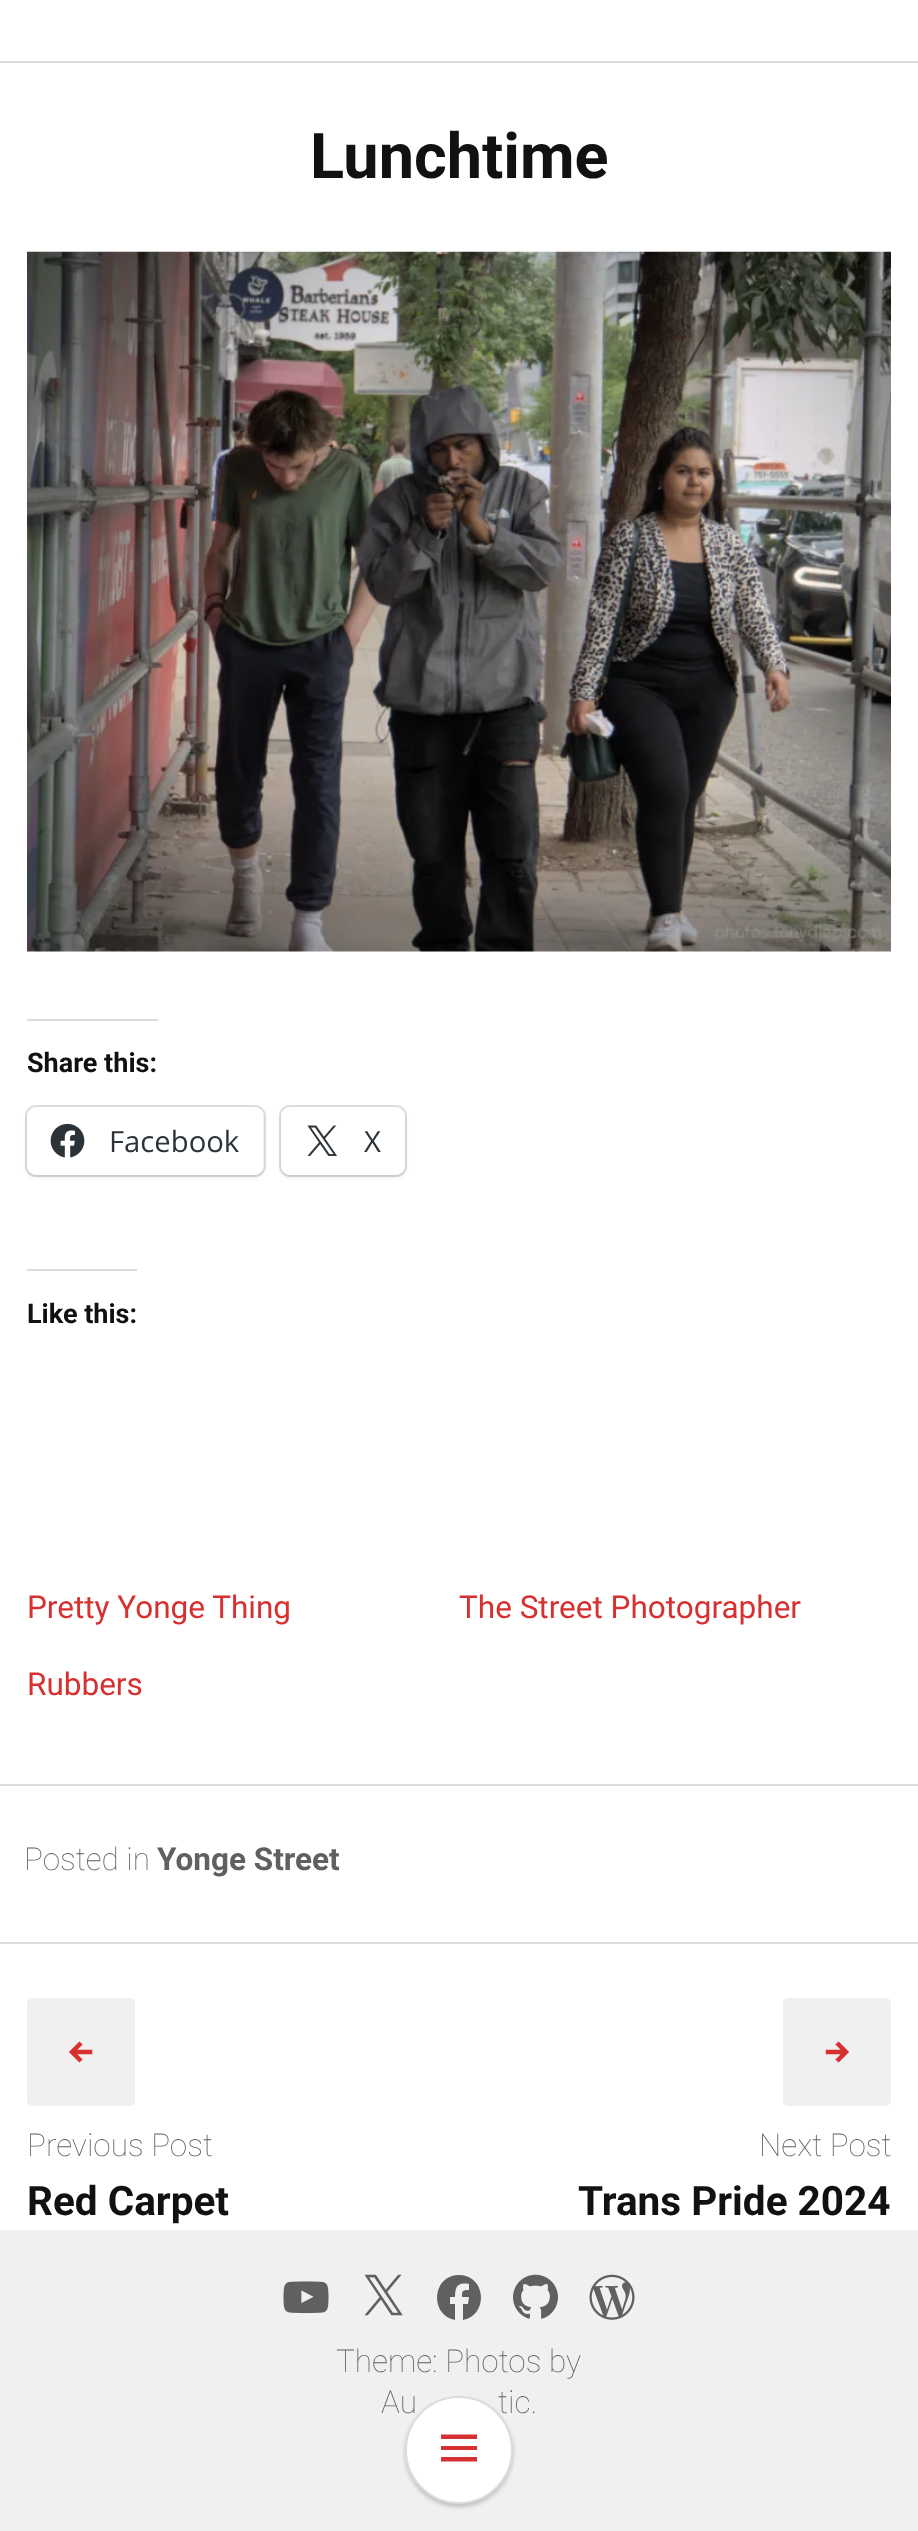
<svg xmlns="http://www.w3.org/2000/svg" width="918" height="2531">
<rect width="100%" height="100%" fill="#fff"/>
<rect y="61" width="918" height="2" fill="#dcdcdc"/>
<rect y="2230" width="918" height="301" fill="#f0f0f0"/>
<rect x="405" y="2399" width="108" height="108" rx="54" fill="#00000033" filter="blur(2px)"/>
<text x="381" y="2413" style="font-family:Roboto;font-size:31.5px;font-weight:100;fill:#606060">Au</text>
<text x="498" y="2413" style="font-family:Roboto;font-size:31.5px;font-weight:100;fill:#606060">tic.</text>
<circle cx="459" cy="2450" r="53" fill="#fff" stroke="#dcdcdc" stroke-width="2"/>
<path d="M441 2461.5h36v-4.5h-36zm0-27v4.5h36v-4.5zm0 15.5h36v-4h-36z" fill="#d63031"/>
<text x="310" y="178" style="font-family:Roboto;font-size:63px;font-weight:bold;fill:#111">Lunchtime</text>
<image x="27" y="251" width="864" height="701" href="media/1.png"/>
<rect x="27" y="1019" width="131" height="2" fill="#dcdcde"/>
<text x="27" y="1072" style="font-family:Roboto;font-size:27px;font-weight:bold;fill:#111">Share this:</text>
<rect x="26" y="1106" width="239" height="70" rx="10" fill="none" stroke="#e0e0e0" stroke-width="2"/>
<rect x="27" y="1109" width="236" height="68" rx="9" fill="#0000001f" filter="blur(2px)"/>
<rect x="27" y="1107" width="236" height="68" rx="9" fill="#fff"/>
<image x="50" y="1123" width="35" height="35" href="media/2.png"/>
<text x="109" y="1152" style="font-family:Open Sans;font-size:29.25px;fill:#2c3338">Facebook</text>
<rect x="280" y="1106" width="126" height="70" rx="10" fill="none" stroke="#e0e0e0" stroke-width="2"/>
<rect x="281" y="1109" width="124" height="68" rx="9" fill="#0000001f" filter="blur(2px)"/>
<rect x="281" y="1107" width="124" height="68" rx="9" fill="#fff"/>
<image x="307" y="1125" width="30" height="31" href="media/3.png"/>
<text x="364" y="1152" style="font-family:Open Sans;font-size:29.25px;fill:#2c3338">X</text>
<rect x="27" y="1269" width="110" height="2" fill="#dcdcde"/>
<text x="27" y="1323" style="font-family:Roboto;font-size:27px;font-weight:bold;fill:#111">Like this:</text>
<text x="27" y="1618" style="font-family:Roboto;font-size:31.5px;fill:#d63031">Pretty Yonge Thing</text>
<text x="459" y="1618" style="font-family:Roboto;font-size:31.5px;fill:#d63031">The Street Photographer</text>
<text x="27" y="1695" style="font-family:Roboto;font-size:31.5px;fill:#d63031">Rubbers</text>
<rect y="1784" width="918" height="2" fill="#dcdcdc"/>
<text x="24" y="1870" style="font-family:Roboto;font-size:31.5px;font-weight:100;fill:#606060">Posted in</text>
<text x="157" y="1870" style="font-family:Roboto;font-size:31.5px;font-weight:bold;fill:#606060">Yonge Street</text>
<rect y="1942" width="918" height="2" fill="#dcdcdc"/>
<rect x="27" y="1998" width="108" height="108" rx="5" fill="#f0f0f0"/>
<image x="69" y="2041" width="24" height="22" href="media/4.png"/>
<text x="27" y="2156" style="font-family:Roboto;font-size:31.5px;font-weight:100;fill:#606060">Previous Post</text>
<text x="27" y="2215" style="font-family:Roboto;font-size:40.5px;font-weight:bold;fill:#111">Red Carpet</text>
<rect x="783" y="1998" width="108" height="108" rx="5" fill="#f0f0f0"/>
<image x="825" y="2041" width="24" height="22" href="media/5.png"/>
<text x="759" y="2156" style="font-family:Roboto;font-size:31.5px;font-weight:100;fill:#606060">Next Post</text>
<text x="578" y="2215" style="font-family:Roboto;font-size:40.5px;font-weight:bold;fill:#111">Trans Pride 2024</text>
<image x="283" y="2281" width="46" height="33" href="media/6.png"/>
<image x="364" y="2274" width="39" height="42" href="media/7.png"/>
<path d="M459 2275c-27 0-30 40-4 45v-16h-5v-7h5c0-10 2-15 14-13v6c-7 0-7 1-7 7h7l-1 7h-5v16c26-5 23-45-4-45z" fill="#606060"/>
<image x="513" y="2274" width="45" height="45" href="media/8.png"/>
<image x="589" y="2274" width="46" height="46" href="media/9.png"/>
<text x="336" y="2372" style="font-family:Roboto;font-size:31.5px;font-weight:100;fill:#606060">Theme: Photos by</text>
</svg>
